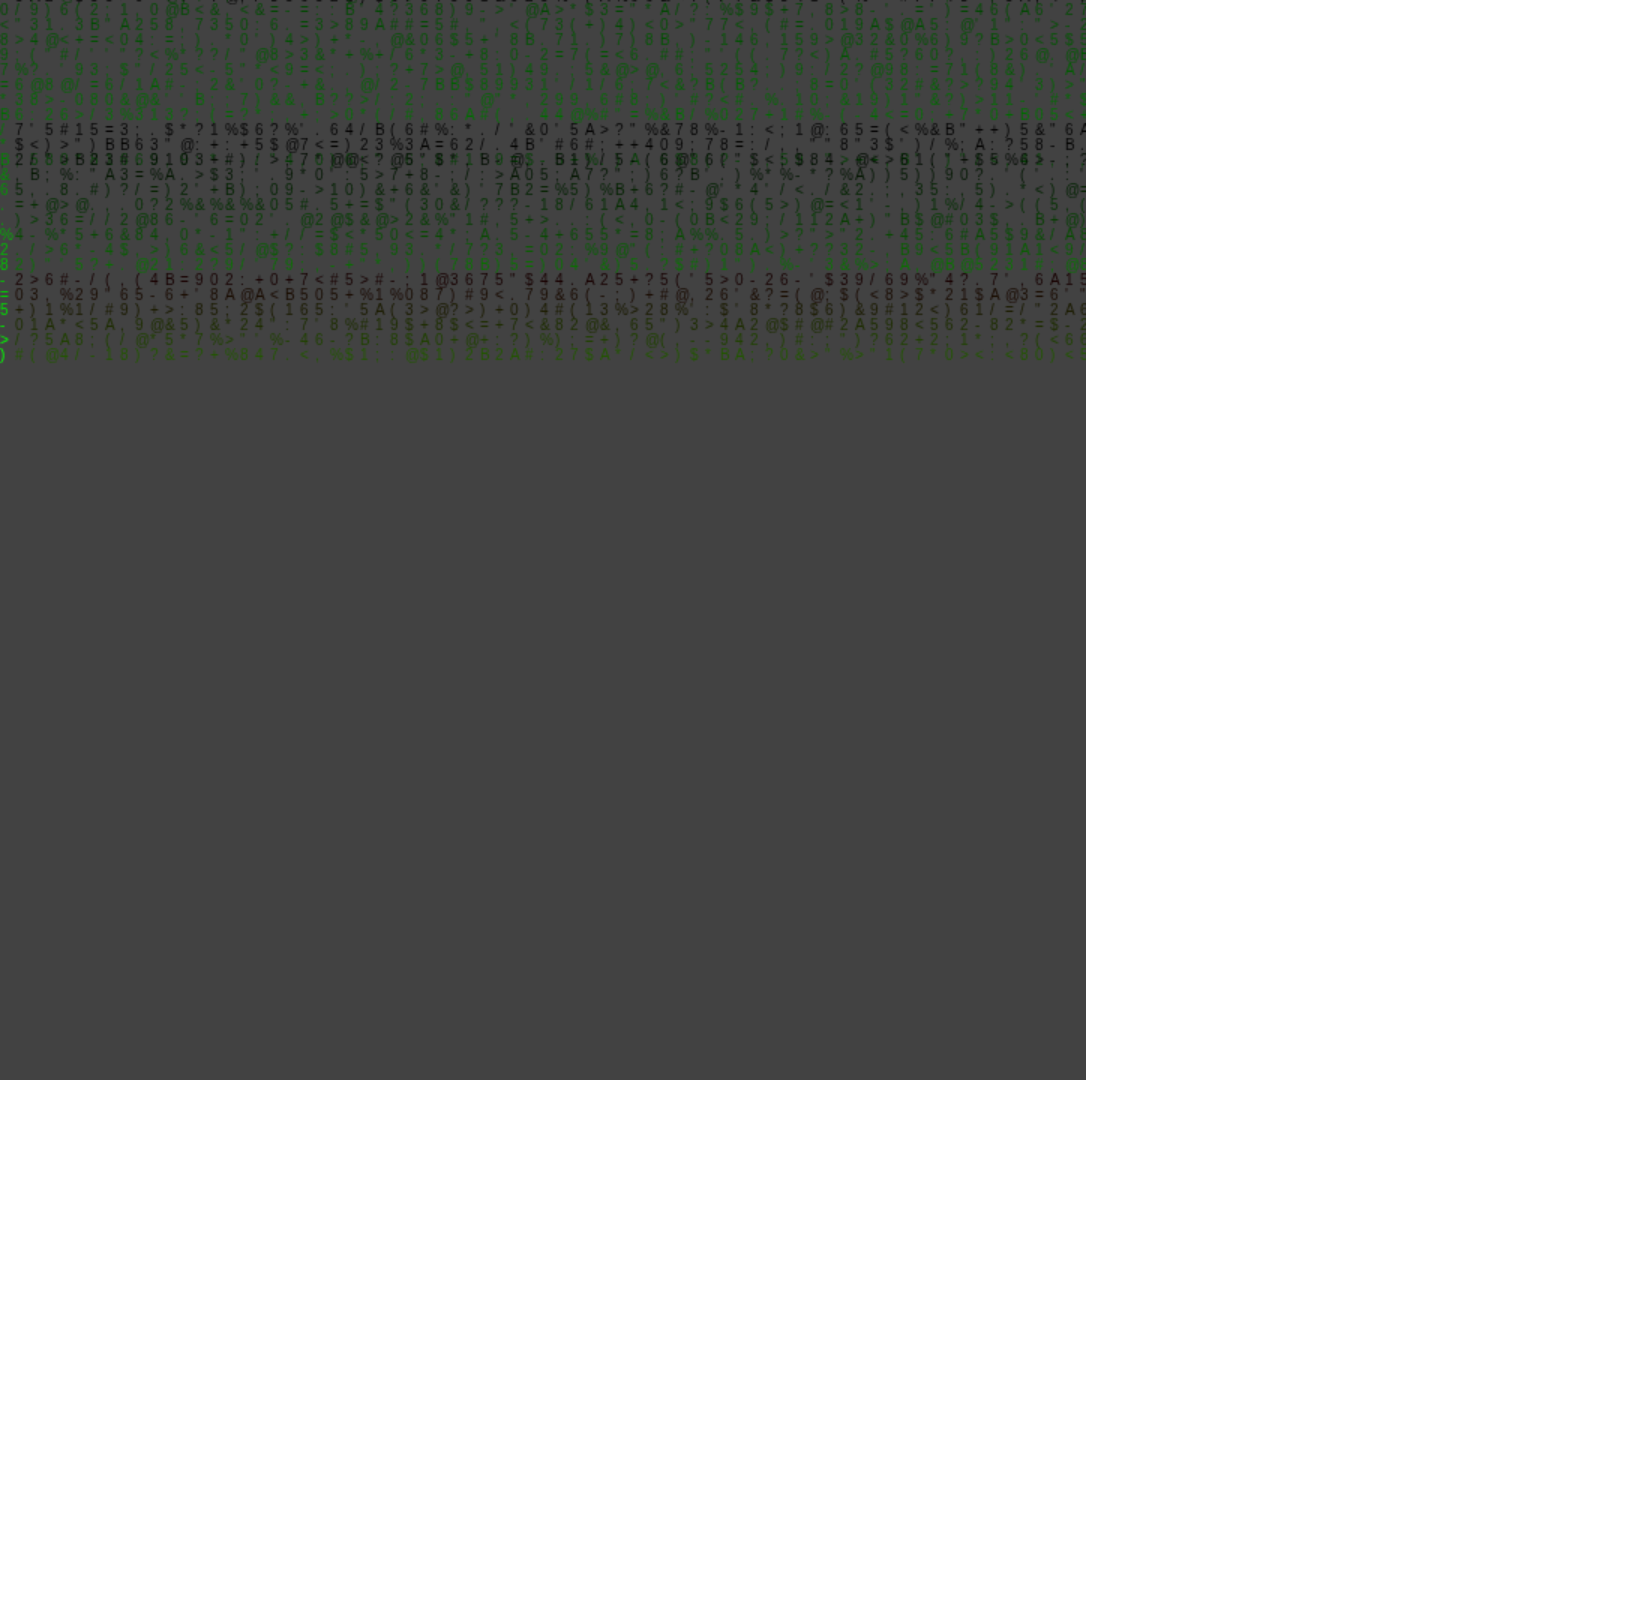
<svg xmlns="http://www.w3.org/2000/svg" width="1627" height="1620">
<rect width="100%" height="100%" fill="#fff"/>
<image x="0" y="0" width="1086" height="1080" href="media/1.png"/>
</svg>
